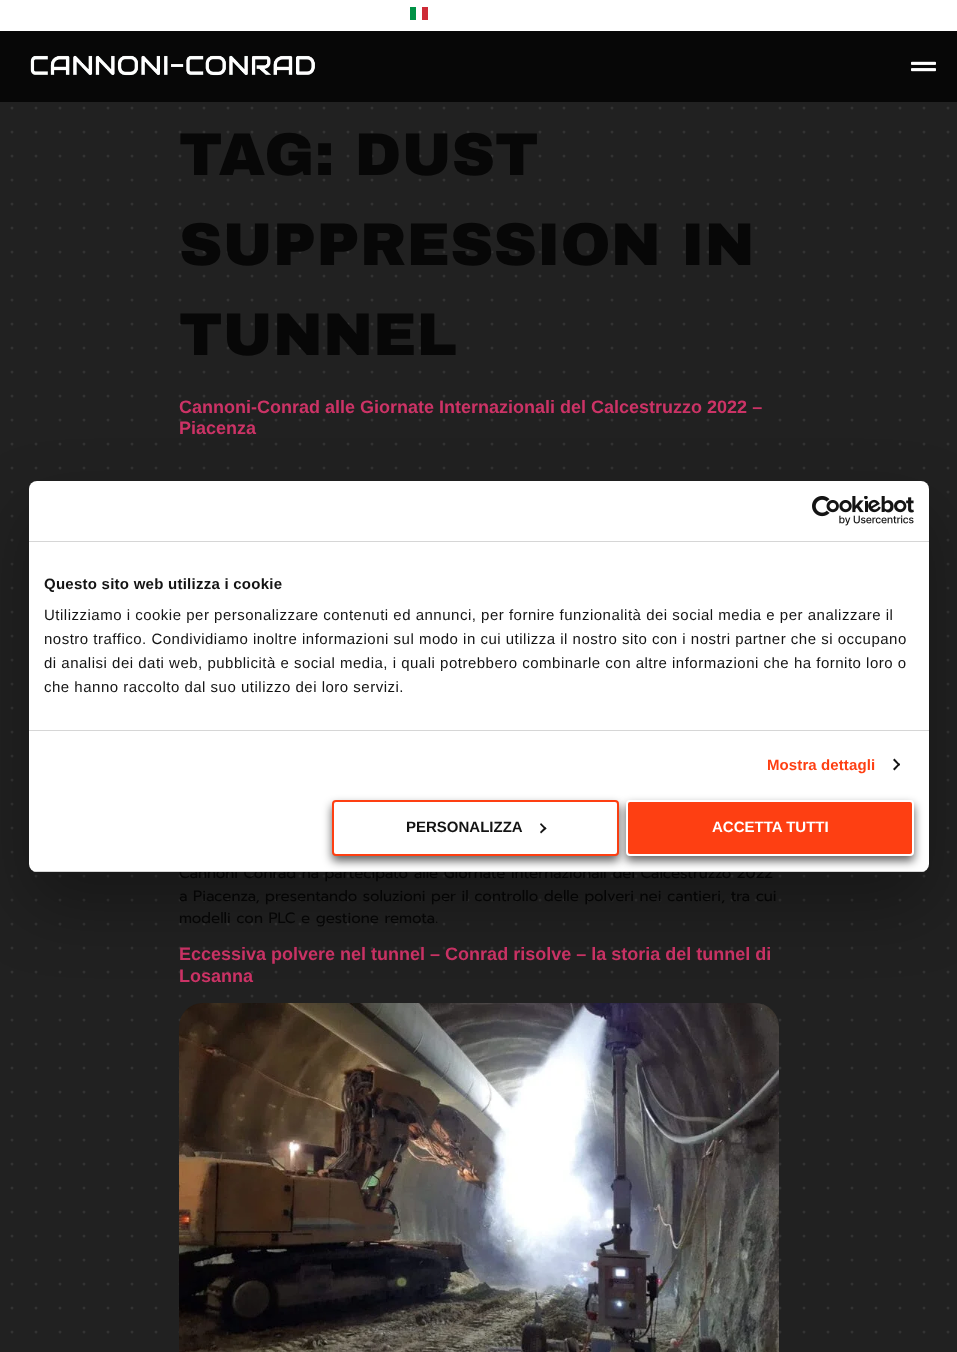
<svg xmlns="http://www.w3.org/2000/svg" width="957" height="1352">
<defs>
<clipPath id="clip1"><rect x="29" y="481" width="900" height="391" rx="8"/></clipPath>
</defs>
<rect width="100%" height="100%" fill="#212121"/>
<path d="M12 12v1320.2" fill="none" stroke="#333" stroke-width="3" stroke-linecap="round" stroke-dasharray="0 24"/>
<path d="M36 12v1320.2" fill="none" stroke="#333" stroke-width="3" stroke-linecap="round" stroke-dasharray="0 24"/>
<path d="M60 12v1320.2" fill="none" stroke="#333" stroke-width="3" stroke-linecap="round" stroke-dasharray="0 24"/>
<path d="M84 12v1320.2" fill="none" stroke="#333" stroke-width="3" stroke-linecap="round" stroke-dasharray="0 24"/>
<path d="M108 12v1320.2" fill="none" stroke="#333" stroke-width="3" stroke-linecap="round" stroke-dasharray="0 24"/>
<path d="M132 12v1320.2" fill="none" stroke="#333" stroke-width="3" stroke-linecap="round" stroke-dasharray="0 24"/>
<path d="M156 12v1320.2" fill="none" stroke="#333" stroke-width="3" stroke-linecap="round" stroke-dasharray="0 24"/>
<path d="M180 12v1320.2" fill="none" stroke="#333" stroke-width="3" stroke-linecap="round" stroke-dasharray="0 24"/>
<path d="M204 12v1320.2" fill="none" stroke="#333" stroke-width="3" stroke-linecap="round" stroke-dasharray="0 24"/>
<path d="M228 12v1320.2" fill="none" stroke="#333" stroke-width="3" stroke-linecap="round" stroke-dasharray="0 24"/>
<path d="M252 12v1320.2" fill="none" stroke="#333" stroke-width="3" stroke-linecap="round" stroke-dasharray="0 24"/>
<path d="M276 12v1320.2" fill="none" stroke="#333" stroke-width="3" stroke-linecap="round" stroke-dasharray="0 24"/>
<path d="M300 12v1320.2" fill="none" stroke="#333" stroke-width="3" stroke-linecap="round" stroke-dasharray="0 24"/>
<path d="M324 12v1320.2" fill="none" stroke="#333" stroke-width="3" stroke-linecap="round" stroke-dasharray="0 24"/>
<path d="M348 12v1320.2" fill="none" stroke="#333" stroke-width="3" stroke-linecap="round" stroke-dasharray="0 24"/>
<path d="M372 12v1320.2" fill="none" stroke="#333" stroke-width="3" stroke-linecap="round" stroke-dasharray="0 24"/>
<path d="M396 12v1320.2" fill="none" stroke="#333" stroke-width="3" stroke-linecap="round" stroke-dasharray="0 24"/>
<path d="M420 12v1320.2" fill="none" stroke="#333" stroke-width="3" stroke-linecap="round" stroke-dasharray="0 24"/>
<path d="M444 12v1320.2" fill="none" stroke="#333" stroke-width="3" stroke-linecap="round" stroke-dasharray="0 24"/>
<path d="M468 12v1320.2" fill="none" stroke="#333" stroke-width="3" stroke-linecap="round" stroke-dasharray="0 24"/>
<path d="M492 12v1320.2" fill="none" stroke="#333" stroke-width="3" stroke-linecap="round" stroke-dasharray="0 24"/>
<path d="M516 12v1320.2" fill="none" stroke="#333" stroke-width="3" stroke-linecap="round" stroke-dasharray="0 24"/>
<path d="M540 12v1320.2" fill="none" stroke="#333" stroke-width="3" stroke-linecap="round" stroke-dasharray="0 24"/>
<path d="M564 12v1320.2" fill="none" stroke="#333" stroke-width="3" stroke-linecap="round" stroke-dasharray="0 24"/>
<path d="M588 12v1320.2" fill="none" stroke="#333" stroke-width="3" stroke-linecap="round" stroke-dasharray="0 24"/>
<path d="M612 12v1320.2" fill="none" stroke="#333" stroke-width="3" stroke-linecap="round" stroke-dasharray="0 24"/>
<path d="M636 12v1320.2" fill="none" stroke="#333" stroke-width="3" stroke-linecap="round" stroke-dasharray="0 24"/>
<path d="M660 12v1320.2" fill="none" stroke="#333" stroke-width="3" stroke-linecap="round" stroke-dasharray="0 24"/>
<path d="M684 12v1320.2" fill="none" stroke="#333" stroke-width="3" stroke-linecap="round" stroke-dasharray="0 24"/>
<path d="M708 12v1320.2" fill="none" stroke="#333" stroke-width="3" stroke-linecap="round" stroke-dasharray="0 24"/>
<path d="M732 12v1320.2" fill="none" stroke="#333" stroke-width="3" stroke-linecap="round" stroke-dasharray="0 24"/>
<path d="M756 12v1320.2" fill="none" stroke="#333" stroke-width="3" stroke-linecap="round" stroke-dasharray="0 24"/>
<path d="M780 12v1320.2" fill="none" stroke="#333" stroke-width="3" stroke-linecap="round" stroke-dasharray="0 24"/>
<path d="M804 12v1320.2" fill="none" stroke="#333" stroke-width="3" stroke-linecap="round" stroke-dasharray="0 24"/>
<path d="M828 12v1320.2" fill="none" stroke="#333" stroke-width="3" stroke-linecap="round" stroke-dasharray="0 24"/>
<path d="M852 12v1320.2" fill="none" stroke="#333" stroke-width="3" stroke-linecap="round" stroke-dasharray="0 24"/>
<path d="M876 12v1320.2" fill="none" stroke="#333" stroke-width="3" stroke-linecap="round" stroke-dasharray="0 24"/>
<path d="M900 12v1320.2" fill="none" stroke="#333" stroke-width="3" stroke-linecap="round" stroke-dasharray="0 24"/>
<path d="M924 12v1320.2" fill="none" stroke="#333" stroke-width="3" stroke-linecap="round" stroke-dasharray="0 24"/>
<path d="M948 12v1320.2" fill="none" stroke="#333" stroke-width="3" stroke-linecap="round" stroke-dasharray="0 24"/>
<rect width="957" height="31" fill="#fff"/>
<rect x="410" y="7" width="6" height="13" fill="#009246"/>
<rect x="422" y="7" width="6" height="13" fill="#ce2b37"/>
<rect y="31" width="957" height="71" fill="#070707"/>
<image x="30" y="55" width="285" height="21" href="media/1.png"/>
<image x="911" y="61" width="25" height="11" href="media/2.png"/>
<text x="179" y="175" style="font-family:Archivo Black;font-size:60.25px;font-weight:900;fill:#070707">TAG: DUST</text>
<text x="179" y="265" style="font-family:Archivo Black;font-size:60.25px;font-weight:900;fill:#070707">SUPPRESSION IN</text>
<text x="179" y="355" style="font-family:Archivo Black;font-size:60.25px;font-weight:900;fill:#070707">TUNNEL</text>
<text x="179" y="413" style="font-family:Liberation Sans;font-size:18px;font-weight:bold;fill:#c36">Cannoni-Conrad alle Giornate Internazionali del Calcestruzzo 2022 –</text>
<text x="179" y="434" style="font-family:Liberation Sans;font-size:18px;font-weight:bold;fill:#c36">Piacenza</text>
<text x="179" y="878" style="font-family:Prompt;font-size:15px;fill:#070707">Cannoni Conrad ha partecipato alle Giornate Internazionali del Calcestruzzo 2022</text>
<text x="179" y="901" style="font-family:Prompt;font-size:15px;fill:#070707">a Piacenza, presentando soluzioni per il controllo delle polveri nei cantieri, tra cui</text>
<text x="179" y="923" style="font-family:Prompt;font-size:15px;fill:#070707">modelli con PLC e gestione remota.</text>
<text x="179" y="960" style="font-family:Liberation Sans;font-size:18px;font-weight:bold;fill:#c36">Eccessiva polvere nel tunnel – Conrad risolve – la storia del tunnel di</text>
<text x="179" y="982" style="font-family:Liberation Sans;font-size:18px;font-weight:bold;fill:#c36">Losanna</text>
<image x="179" y="1003" width="600" height="349" href="media/3.png"/>
<rect x="29" y="513" width="900" height="391" rx="8" fill="#0000004d" filter="blur(34px)"/>
<rect x="29" y="481" width="900" height="391" rx="8" fill="#fff"/>
<rect x="29" y="541" width="900" height="1" fill="#d6d6d6"/>
<image x="812" y="496" width="102" height="30" href="media/4.png"/>
<rect x="29" y="730" width="900" height="1" fill="#d6d6d6"/>
<text x="44" y="589" style="font-family:Liberation Sans;font-size:15px;font-weight:bold;letter-spacing:0.25px;fill:#141414">Questo sito web utilizza i cookie</text>
<text x="44" y="620" style="font-family:Liberation Sans;font-size:15px;letter-spacing:0.5px;fill:#141414">Utilizziamo i cookie per personalizzare contenuti ed annunci, per fornire funzionalità dei social media e per analizzare il</text>
<text x="44" y="644" style="font-family:Liberation Sans;font-size:15px;letter-spacing:0.5px;fill:#141414">nostro traffico. Condividiamo inoltre informazioni sul modo in cui utilizza il nostro sito con i nostri partner che si occupano</text>
<text x="44" y="668" style="font-family:Liberation Sans;font-size:15px;letter-spacing:0.5px;fill:#141414">di analisi dei dati web, pubblicità e social media, i quali potrebbero combinarle con altre informazioni che ha fornito loro o</text>
<text x="44" y="692" style="font-family:Liberation Sans;font-size:15px;letter-spacing:0.5px;fill:#141414">che hanno raccolto dal suo utilizzo dei loro servizi.</text>
<text x="767" y="770" style="font-family:Liberation Sans;font-size:15px;font-weight:bold;letter-spacing:0.1px;fill:#fe3f12">Mostra dettagli</text>
<path d="M894.5 758.5l5.5 6l-1 1.5l-6-6z" fill="#141414"/>
<path d="M899 763l1 1.5l-5.5 6l-1.5-1.5z" fill="#141414"/>
<g clip-path="url(#clip1)">
<rect x="29" y="871" width="900" height="1" fill="#d6d6d6"/>
</g>
<rect x="332" y="805" width="287" height="56" rx="4" fill="#0000009c" filter="blur(5px)"/>
<rect x="333" y="801" width="285" height="54" rx="3" fill="#fff" stroke="#fe3f12" stroke-width="2"/>
<text x="406" y="832" style="font-family:Liberation Sans;font-size:15px;font-weight:bold;fill:#141414">PERSONALIZZA</text>
<path d="M541 823l5.5 5.5l-1.5 1l-5-5z" fill="#141414"/>
<path d="M545 827l1.5 1.5l-5.5 5l-1-1.5z" fill="#141414"/>
<rect x="626" y="805" width="288" height="56" rx="4" fill="#0000009c" filter="blur(5px)"/>
<rect x="627" y="801" width="286" height="54" rx="3" fill="#fe3f12" stroke="#fff" stroke-width="2"/>
<text x="712" y="832" style="font-family:Liberation Sans;font-size:15px;font-weight:bold;fill:#fff">ACCETTA TUTTI</text>
</svg>
